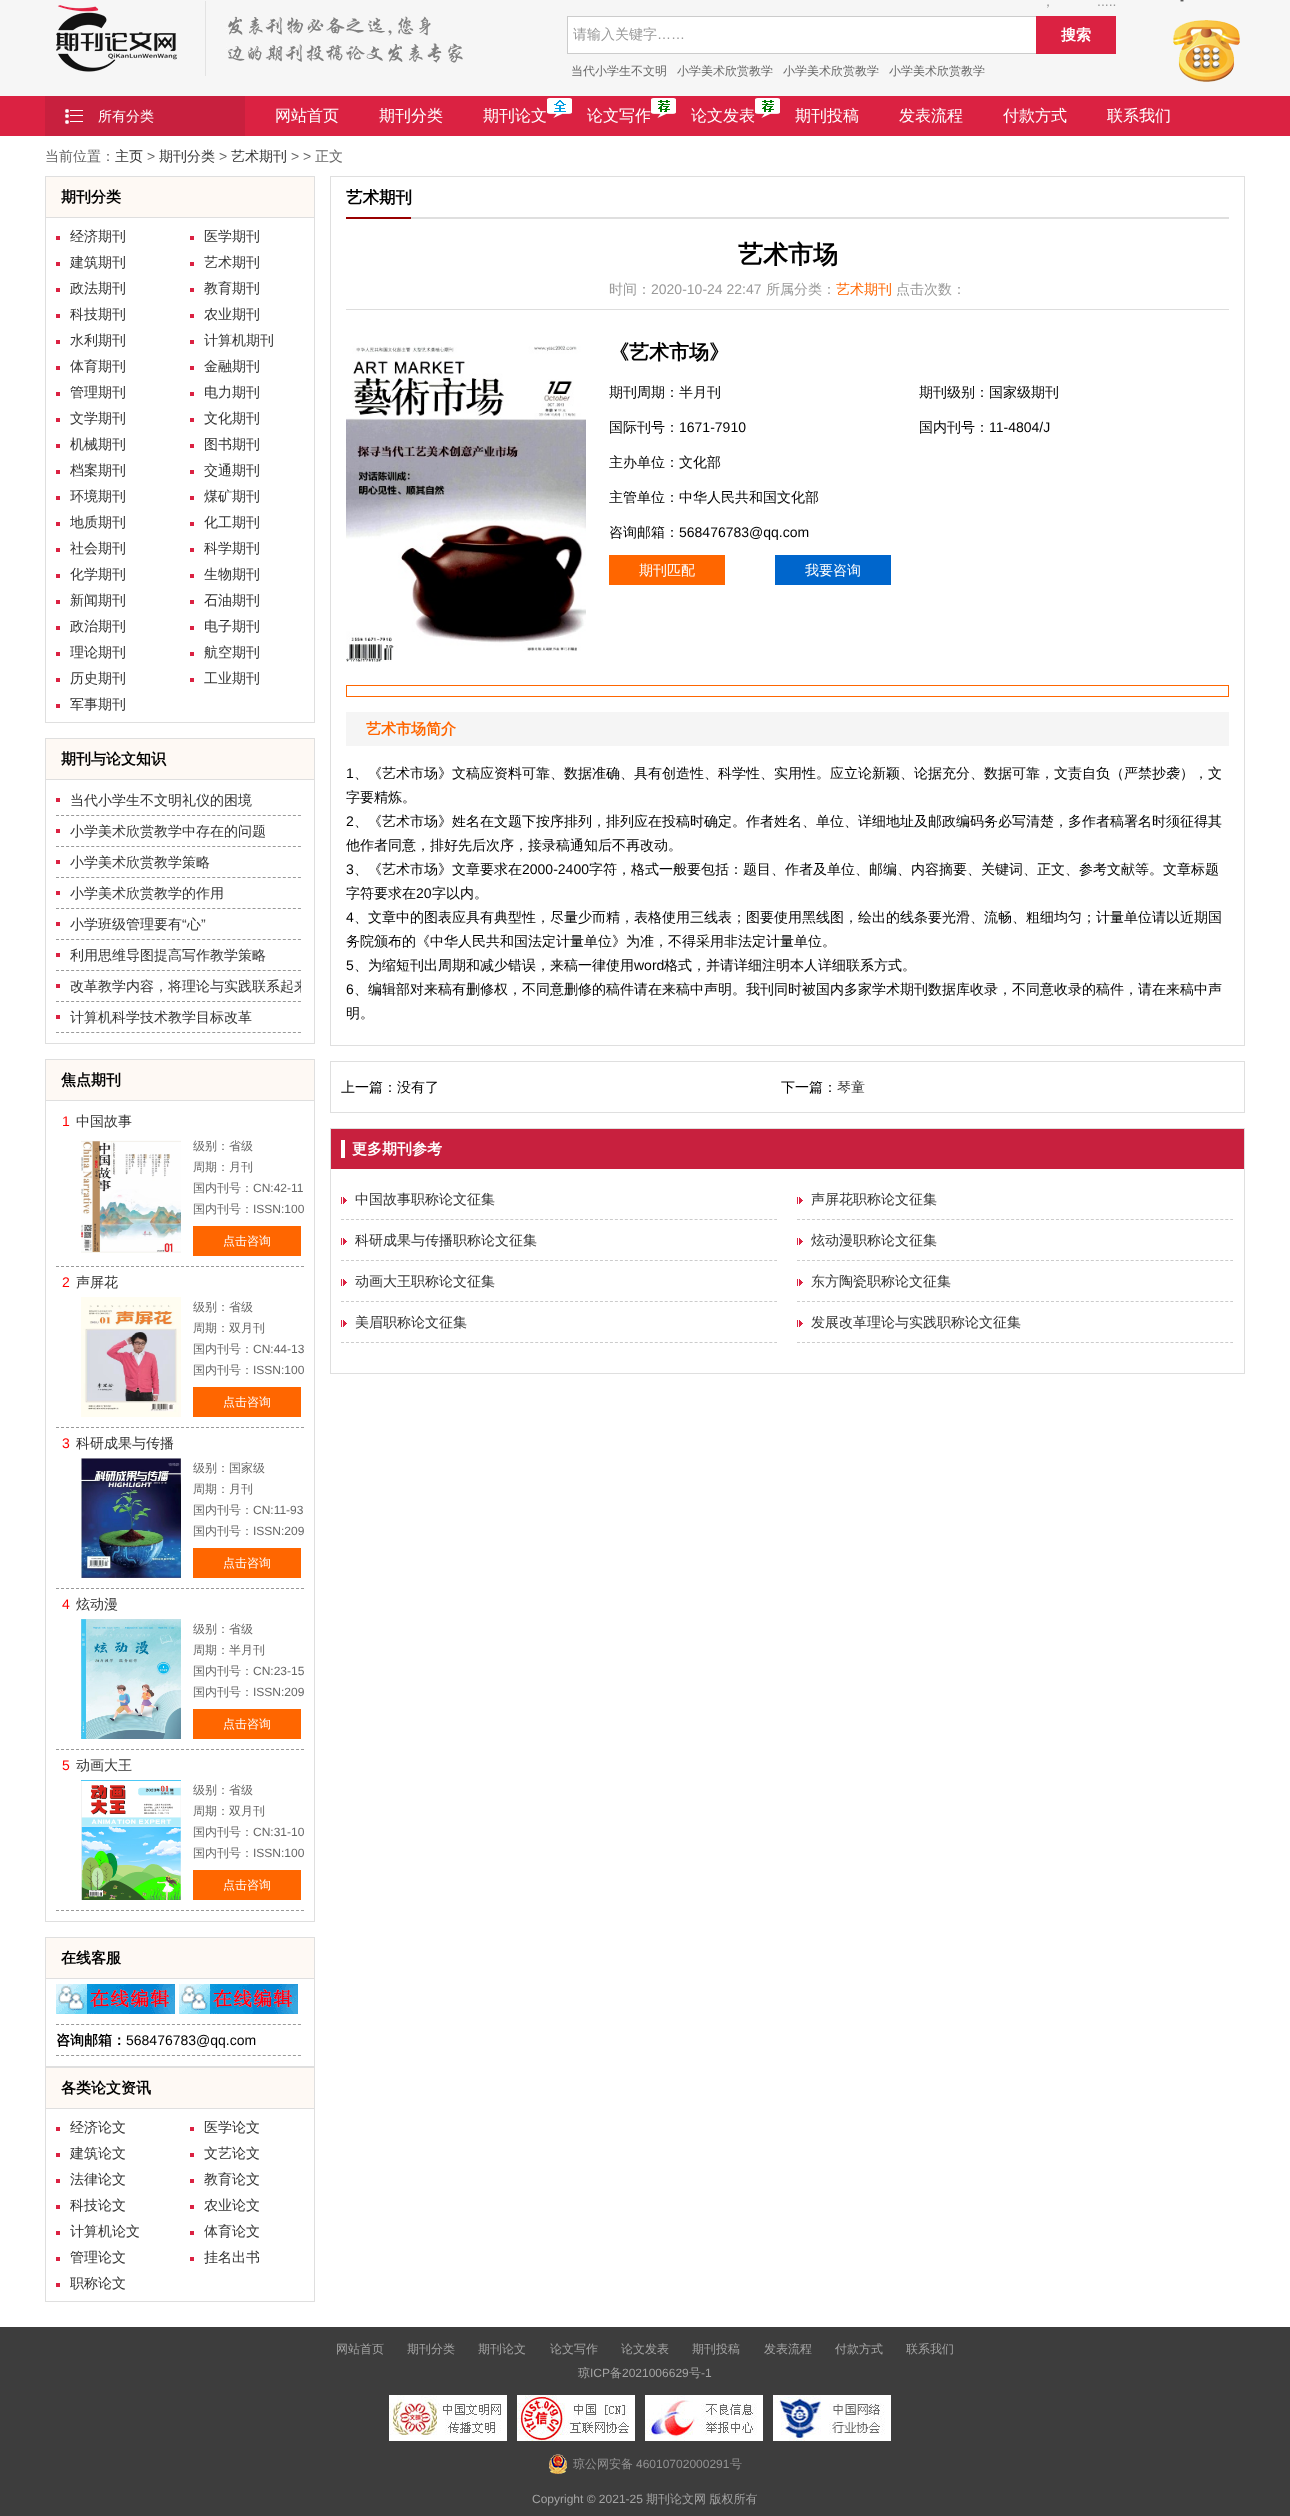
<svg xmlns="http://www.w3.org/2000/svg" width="1290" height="2516">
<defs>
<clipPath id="clip1"><rect x="56" y="971" width="245" height="30"/></clipPath>
</defs>
<rect width="100%" height="100%" fill="#fff"/>
<rect width="1290" height="96" fill="#f6f6f6"/>
<image x="56" y="5" width="121" height="67" href="media/1.png"/>
<image x="226" y="16" width="237" height="47" href="media/2.png"/>
<rect x="205" y="1" width="1" height="75" fill="#e3e3e3"/>
<text x="1041" y="6" style="font-family:WenQuanYi Zen Hei;font-size:14px;font-weight:500;fill:#999">，</text>
<text x="1097" y="6" style="font-family:Liberation Sans;font-size:14px;fill:#999">.....</text>
<rect x="567" y="16" width="469" height="1" fill="#ccc"/>
<rect x="567" y="53" width="469" height="1" fill="#ccc"/>
<rect x="567" y="16" width="1" height="38" fill="#ccc"/>
<rect x="568" y="17" width="468" height="36" fill="#fff"/>
<text x="573" y="39" style="font-family:WenQuanYi Zen Hei;font-size:14px;font-weight:500;fill:#999">请输入关键字</text>
<text x="657" y="39" style="font-family:Liberation Sans;font-size:14px;fill:#999">……</text>
<rect x="1036" y="16" width="80" height="38" fill="#db2242"/>
<text x="1061" y="40" style="font-family:WenQuanYi Zen Hei;font-size:15px;font-weight:bold;fill:#fff">搜索</text>
<text x="571" y="75" style="font-family:WenQuanYi Zen Hei;font-size:12px;font-weight:500;fill:#666">当代小学生不文明</text>
<text x="677" y="75" style="font-family:WenQuanYi Zen Hei;font-size:12px;font-weight:500;fill:#666">小学美术欣赏教学</text>
<text x="783" y="75" style="font-family:WenQuanYi Zen Hei;font-size:12px;font-weight:500;fill:#666">小学美术欣赏教学</text>
<text x="889" y="75" style="font-family:WenQuanYi Zen Hei;font-size:12px;font-weight:500;fill:#666">小学美术欣赏教学</text>
<image x="1173" y="20" width="67" height="62" href="media/3.png"/>
<text x="1180" y="4" style="font-family:Liberation Sans;font-size:12px;fill:#000">-</text>
<rect y="96" width="1290" height="40" fill="#db2242"/>
<rect x="45" y="96" width="200" height="40" fill="#c8203e"/>
<image x="65" y="109" width="18" height="15" href="media/4.png"/>
<text x="98" y="121" style="font-family:WenQuanYi Zen Hei;font-size:14px;font-weight:500;fill:#fff">所有分类</text>
<text x="275" y="121" style="font-family:WenQuanYi Zen Hei;font-size:16px;font-weight:500;fill:#fff">网站首页</text>
<text x="379" y="121" style="font-family:WenQuanYi Zen Hei;font-size:16px;font-weight:500;fill:#fff">期刊分类</text>
<text x="483" y="121" style="font-family:WenQuanYi Zen Hei;font-size:16px;font-weight:500;fill:#fff">期刊论文</text>
<image x="547" y="98" width="25" height="20" href="media/5.png"/>
<text x="587" y="121" style="font-family:WenQuanYi Zen Hei;font-size:16px;font-weight:500;fill:#fff">论文写作</text>
<image x="651" y="98" width="25" height="20" href="media/6.png"/>
<text x="691" y="121" style="font-family:WenQuanYi Zen Hei;font-size:16px;font-weight:500;fill:#fff">论文发表</text>
<image x="755" y="98" width="25" height="20" href="media/6.png"/>
<text x="795" y="121" style="font-family:WenQuanYi Zen Hei;font-size:16px;font-weight:500;fill:#fff">期刊投稿</text>
<text x="899" y="121" style="font-family:WenQuanYi Zen Hei;font-size:16px;font-weight:500;fill:#fff">发表流程</text>
<text x="1003" y="121" style="font-family:WenQuanYi Zen Hei;font-size:16px;font-weight:500;fill:#fff">付款方式</text>
<text x="1107" y="121" style="font-family:WenQuanYi Zen Hei;font-size:16px;font-weight:500;fill:#fff">联系我们</text>
<text x="45" y="161" style="font-family:WenQuanYi Zen Hei;font-size:14px;font-weight:500;fill:#666">当前位置：</text>
<text x="115" y="161" style="font-family:WenQuanYi Zen Hei;font-size:14px;font-weight:500;fill:#333">主页</text>
<text x="147" y="161" style="font-family:Liberation Sans;font-size:14px;fill:#666">&gt;</text>
<text x="159" y="161" style="font-family:WenQuanYi Zen Hei;font-size:14px;font-weight:500;fill:#333">期刊分类</text>
<text x="219" y="161" style="font-family:Liberation Sans;font-size:14px;fill:#666">&gt;</text>
<text x="231" y="161" style="font-family:WenQuanYi Zen Hei;font-size:14px;font-weight:500;fill:#333">艺术期刊</text>
<text x="291" y="161" style="font-family:Liberation Sans;font-size:14px;fill:#666">&gt; &gt;</text>
<text x="315" y="161" style="font-family:WenQuanYi Zen Hei;font-size:14px;font-weight:500;fill:#666">正文</text>
<rect x="45.5" y="176.5" width="269" height="546" fill="none" stroke="#dfdfdf"/>
<rect x="46" y="177" width="268" height="40" fill="#fef9f4"/>
<rect x="46" y="217" width="268" height="1" fill="#dfdfdf"/>
<text x="61" y="202" style="font-family:WenQuanYi Zen Hei;font-size:15px;font-weight:bold;fill:#000">期刊分类</text>
<rect x="56" y="236" width="4" height="4" fill="#db2242"/>
<text x="70" y="241" style="font-family:WenQuanYi Zen Hei;font-size:14px;font-weight:500;fill:#333">经济期刊</text>
<rect x="190" y="236" width="4" height="4" fill="#db2242"/>
<text x="204" y="241" style="font-family:WenQuanYi Zen Hei;font-size:14px;font-weight:500;fill:#333">医学期刊</text>
<rect x="56" y="262" width="4" height="4" fill="#db2242"/>
<text x="70" y="267" style="font-family:WenQuanYi Zen Hei;font-size:14px;font-weight:500;fill:#333">建筑期刊</text>
<rect x="190" y="262" width="4" height="4" fill="#db2242"/>
<text x="204" y="267" style="font-family:WenQuanYi Zen Hei;font-size:14px;font-weight:500;fill:#333">艺术期刊</text>
<rect x="56" y="288" width="4" height="4" fill="#db2242"/>
<text x="70" y="293" style="font-family:WenQuanYi Zen Hei;font-size:14px;font-weight:500;fill:#333">政法期刊</text>
<rect x="190" y="288" width="4" height="4" fill="#db2242"/>
<text x="204" y="293" style="font-family:WenQuanYi Zen Hei;font-size:14px;font-weight:500;fill:#333">教育期刊</text>
<rect x="56" y="314" width="4" height="4" fill="#db2242"/>
<text x="70" y="319" style="font-family:WenQuanYi Zen Hei;font-size:14px;font-weight:500;fill:#333">科技期刊</text>
<rect x="190" y="314" width="4" height="4" fill="#db2242"/>
<text x="204" y="319" style="font-family:WenQuanYi Zen Hei;font-size:14px;font-weight:500;fill:#333">农业期刊</text>
<rect x="56" y="340" width="4" height="4" fill="#db2242"/>
<text x="70" y="345" style="font-family:WenQuanYi Zen Hei;font-size:14px;font-weight:500;fill:#333">水利期刊</text>
<rect x="190" y="340" width="4" height="4" fill="#db2242"/>
<text x="204" y="345" style="font-family:WenQuanYi Zen Hei;font-size:14px;font-weight:500;fill:#333">计算机期刊</text>
<rect x="56" y="366" width="4" height="4" fill="#db2242"/>
<text x="70" y="371" style="font-family:WenQuanYi Zen Hei;font-size:14px;font-weight:500;fill:#333">体育期刊</text>
<rect x="190" y="366" width="4" height="4" fill="#db2242"/>
<text x="204" y="371" style="font-family:WenQuanYi Zen Hei;font-size:14px;font-weight:500;fill:#333">金融期刊</text>
<rect x="56" y="392" width="4" height="4" fill="#db2242"/>
<text x="70" y="397" style="font-family:WenQuanYi Zen Hei;font-size:14px;font-weight:500;fill:#333">管理期刊</text>
<rect x="190" y="392" width="4" height="4" fill="#db2242"/>
<text x="204" y="397" style="font-family:WenQuanYi Zen Hei;font-size:14px;font-weight:500;fill:#333">电力期刊</text>
<rect x="56" y="418" width="4" height="4" fill="#db2242"/>
<text x="70" y="423" style="font-family:WenQuanYi Zen Hei;font-size:14px;font-weight:500;fill:#333">文学期刊</text>
<rect x="190" y="418" width="4" height="4" fill="#db2242"/>
<text x="204" y="423" style="font-family:WenQuanYi Zen Hei;font-size:14px;font-weight:500;fill:#333">文化期刊</text>
<rect x="56" y="444" width="4" height="4" fill="#db2242"/>
<text x="70" y="449" style="font-family:WenQuanYi Zen Hei;font-size:14px;font-weight:500;fill:#333">机械期刊</text>
<rect x="190" y="444" width="4" height="4" fill="#db2242"/>
<text x="204" y="449" style="font-family:WenQuanYi Zen Hei;font-size:14px;font-weight:500;fill:#333">图书期刊</text>
<rect x="56" y="470" width="4" height="4" fill="#db2242"/>
<text x="70" y="475" style="font-family:WenQuanYi Zen Hei;font-size:14px;font-weight:500;fill:#333">档案期刊</text>
<rect x="190" y="470" width="4" height="4" fill="#db2242"/>
<text x="204" y="475" style="font-family:WenQuanYi Zen Hei;font-size:14px;font-weight:500;fill:#333">交通期刊</text>
<rect x="56" y="496" width="4" height="4" fill="#db2242"/>
<text x="70" y="501" style="font-family:WenQuanYi Zen Hei;font-size:14px;font-weight:500;fill:#333">环境期刊</text>
<rect x="190" y="496" width="4" height="4" fill="#db2242"/>
<text x="204" y="501" style="font-family:WenQuanYi Zen Hei;font-size:14px;font-weight:500;fill:#333">煤矿期刊</text>
<rect x="56" y="522" width="4" height="4" fill="#db2242"/>
<text x="70" y="527" style="font-family:WenQuanYi Zen Hei;font-size:14px;font-weight:500;fill:#333">地质期刊</text>
<rect x="190" y="522" width="4" height="4" fill="#db2242"/>
<text x="204" y="527" style="font-family:WenQuanYi Zen Hei;font-size:14px;font-weight:500;fill:#333">化工期刊</text>
<rect x="56" y="548" width="4" height="4" fill="#db2242"/>
<text x="70" y="553" style="font-family:WenQuanYi Zen Hei;font-size:14px;font-weight:500;fill:#333">社会期刊</text>
<rect x="190" y="548" width="4" height="4" fill="#db2242"/>
<text x="204" y="553" style="font-family:WenQuanYi Zen Hei;font-size:14px;font-weight:500;fill:#333">科学期刊</text>
<rect x="56" y="574" width="4" height="4" fill="#db2242"/>
<text x="70" y="579" style="font-family:WenQuanYi Zen Hei;font-size:14px;font-weight:500;fill:#333">化学期刊</text>
<rect x="190" y="574" width="4" height="4" fill="#db2242"/>
<text x="204" y="579" style="font-family:WenQuanYi Zen Hei;font-size:14px;font-weight:500;fill:#333">生物期刊</text>
<rect x="56" y="600" width="4" height="4" fill="#db2242"/>
<text x="70" y="605" style="font-family:WenQuanYi Zen Hei;font-size:14px;font-weight:500;fill:#333">新闻期刊</text>
<rect x="190" y="600" width="4" height="4" fill="#db2242"/>
<text x="204" y="605" style="font-family:WenQuanYi Zen Hei;font-size:14px;font-weight:500;fill:#333">石油期刊</text>
<rect x="56" y="626" width="4" height="4" fill="#db2242"/>
<text x="70" y="631" style="font-family:WenQuanYi Zen Hei;font-size:14px;font-weight:500;fill:#333">政治期刊</text>
<rect x="190" y="626" width="4" height="4" fill="#db2242"/>
<text x="204" y="631" style="font-family:WenQuanYi Zen Hei;font-size:14px;font-weight:500;fill:#333">电子期刊</text>
<rect x="56" y="652" width="4" height="4" fill="#db2242"/>
<text x="70" y="657" style="font-family:WenQuanYi Zen Hei;font-size:14px;font-weight:500;fill:#333">理论期刊</text>
<rect x="190" y="652" width="4" height="4" fill="#db2242"/>
<text x="204" y="657" style="font-family:WenQuanYi Zen Hei;font-size:14px;font-weight:500;fill:#333">航空期刊</text>
<rect x="56" y="678" width="4" height="4" fill="#db2242"/>
<text x="70" y="683" style="font-family:WenQuanYi Zen Hei;font-size:14px;font-weight:500;fill:#333">历史期刊</text>
<rect x="190" y="678" width="4" height="4" fill="#db2242"/>
<text x="204" y="683" style="font-family:WenQuanYi Zen Hei;font-size:14px;font-weight:500;fill:#333">工业期刊</text>
<rect x="56" y="704" width="4" height="4" fill="#db2242"/>
<text x="70" y="709" style="font-family:WenQuanYi Zen Hei;font-size:14px;font-weight:500;fill:#333">军事期刊</text>
<rect x="45.5" y="738.5" width="269" height="305" fill="none" stroke="#dfdfdf"/>
<rect x="46" y="739" width="268" height="40" fill="#fef9f4"/>
<rect x="46" y="779" width="268" height="1" fill="#dfdfdf"/>
<text x="61" y="764" style="font-family:WenQuanYi Zen Hei;font-size:15px;font-weight:bold;fill:#000">期刊与论文知识</text>
<path d="M56 815.5h245" fill="none" stroke="#999" stroke-dasharray="3 2.04"/>
<rect x="56" y="798" width="4" height="4" fill="#db2242"/>
<text x="70" y="805" style="font-family:WenQuanYi Zen Hei;font-size:14px;font-weight:500;fill:#333">当代小学生不文明礼仪的困境</text>
<path d="M56 846.5h245" fill="none" stroke="#999" stroke-dasharray="3 2.04"/>
<rect x="56" y="829" width="4" height="4" fill="#db2242"/>
<text x="70" y="836" style="font-family:WenQuanYi Zen Hei;font-size:14px;font-weight:500;fill:#333">小学美术欣赏教学中存在的问题</text>
<path d="M56 877.5h245" fill="none" stroke="#999" stroke-dasharray="3 2.04"/>
<rect x="56" y="860" width="4" height="4" fill="#db2242"/>
<text x="70" y="867" style="font-family:WenQuanYi Zen Hei;font-size:14px;font-weight:500;fill:#333">小学美术欣赏教学策略</text>
<path d="M56 908.5h245" fill="none" stroke="#999" stroke-dasharray="3 2.04"/>
<rect x="56" y="891" width="4" height="4" fill="#db2242"/>
<text x="70" y="898" style="font-family:WenQuanYi Zen Hei;font-size:14px;font-weight:500;fill:#333">小学美术欣赏教学的作用</text>
<path d="M56 939.5h245" fill="none" stroke="#999" stroke-dasharray="3 2.04"/>
<text x="70" y="929" style="font-family:WenQuanYi Zen Hei;font-size:14px;font-weight:500;fill:#333">小学班级管理要有</text>
<text x="182" y="929" style="font-family:Liberation Sans;font-size:14px;fill:#333">“</text>
<text x="187" y="929" style="font-family:WenQuanYi Zen Hei;font-size:14px;font-weight:500;fill:#333">心</text>
<text x="201" y="929" style="font-family:Liberation Sans;font-size:14px;fill:#333">”</text>
<rect x="56" y="922" width="4" height="4" fill="#db2242"/>
<path d="M56 970.5h245" fill="none" stroke="#999" stroke-dasharray="3 2.04"/>
<rect x="56" y="953" width="4" height="4" fill="#db2242"/>
<text x="70" y="960" style="font-family:WenQuanYi Zen Hei;font-size:14px;font-weight:500;fill:#333">利用思维导图提高写作教学策略</text>
<path d="M56 1001.5h245" fill="none" stroke="#999" stroke-dasharray="3 2.04"/>
<rect x="56" y="984" width="4" height="4" fill="#db2242"/>
<g clip-path="url(#clip1)">
<text x="70" y="991" style="font-family:WenQuanYi Zen Hei;font-size:14px;font-weight:500;fill:#333">改革教学内容，将理论与实践联系起来</text>
</g>
<path d="M56 1032.5h245" fill="none" stroke="#999" stroke-dasharray="3 2.04"/>
<rect x="56" y="1015" width="4" height="4" fill="#db2242"/>
<text x="70" y="1022" style="font-family:WenQuanYi Zen Hei;font-size:14px;font-weight:500;fill:#333">计算机科学技术教学目标改革</text>
<rect x="45.5" y="1059.5" width="269" height="862" fill="none" stroke="#dfdfdf"/>
<rect x="46" y="1060" width="268" height="40" fill="#fef9f4"/>
<rect x="46" y="1100" width="268" height="1" fill="#dfdfdf"/>
<text x="61" y="1085" style="font-family:WenQuanYi Zen Hei;font-size:15px;font-weight:bold;fill:#000">焦点期刊</text>
<path d="M56 1266.5h248" fill="none" stroke="#999" stroke-dasharray="3 2"/>
<text x="62" y="1126" style="font-family:Liberation Sans;font-size:14px;fill:#f00">1</text>
<text x="76" y="1126" style="font-family:WenQuanYi Zen Hei;font-size:14px;font-weight:500;fill:#333">中国故事</text>
<image x="81" y="1140" width="100" height="113" href="media/7.png"/>
<text x="193" y="1150" style="font-family:WenQuanYi Zen Hei;font-size:12px;font-weight:500;fill:#666">级别：省级</text>
<text x="193" y="1171" style="font-family:WenQuanYi Zen Hei;font-size:12px;font-weight:500;fill:#666">周期：月刊</text>
<text x="193" y="1192" style="font-family:WenQuanYi Zen Hei;font-size:12px;font-weight:500;fill:#666">国内刊号：</text>
<text x="253" y="1192" style="font-family:Liberation Sans;font-size:12px;fill:#666">CN:42-11</text>
<text x="193" y="1213" style="font-family:WenQuanYi Zen Hei;font-size:12px;font-weight:500;fill:#666">国内刊号：</text>
<text x="253" y="1213" style="font-family:Liberation Sans;font-size:12px;fill:#666">ISSN:100</text>
<rect x="193" y="1226" width="108" height="30" fill="#f60"/>
<text x="223" y="1245" style="font-family:WenQuanYi Zen Hei;font-size:12px;font-weight:500;fill:#fff">点击咨询</text>
<path d="M56 1427.5h248" fill="none" stroke="#999" stroke-dasharray="3 2"/>
<text x="62" y="1287" style="font-family:Liberation Sans;font-size:14px;fill:#f00">2</text>
<text x="76" y="1287" style="font-family:WenQuanYi Zen Hei;font-size:14px;font-weight:500;fill:#333">声屏花</text>
<image x="81" y="1297" width="100" height="120" href="media/8.png"/>
<text x="193" y="1311" style="font-family:WenQuanYi Zen Hei;font-size:12px;font-weight:500;fill:#666">级别：省级</text>
<text x="193" y="1332" style="font-family:WenQuanYi Zen Hei;font-size:12px;font-weight:500;fill:#666">周期：双月刊</text>
<text x="193" y="1353" style="font-family:WenQuanYi Zen Hei;font-size:12px;font-weight:500;fill:#666">国内刊号：</text>
<text x="253" y="1353" style="font-family:Liberation Sans;font-size:12px;fill:#666">CN:44-13</text>
<text x="193" y="1374" style="font-family:WenQuanYi Zen Hei;font-size:12px;font-weight:500;fill:#666">国内刊号：</text>
<text x="253" y="1374" style="font-family:Liberation Sans;font-size:12px;fill:#666">ISSN:100</text>
<rect x="193" y="1387" width="108" height="30" fill="#f60"/>
<text x="223" y="1406" style="font-family:WenQuanYi Zen Hei;font-size:12px;font-weight:500;fill:#fff">点击咨询</text>
<path d="M56 1588.5h248" fill="none" stroke="#999" stroke-dasharray="3 2"/>
<text x="62" y="1448" style="font-family:Liberation Sans;font-size:14px;fill:#f00">3</text>
<text x="76" y="1448" style="font-family:WenQuanYi Zen Hei;font-size:14px;font-weight:500;fill:#333">科研成果与传播</text>
<image x="81" y="1458" width="100" height="120" href="media/9.png"/>
<text x="193" y="1472" style="font-family:WenQuanYi Zen Hei;font-size:12px;font-weight:500;fill:#666">级别：国家级</text>
<text x="193" y="1493" style="font-family:WenQuanYi Zen Hei;font-size:12px;font-weight:500;fill:#666">周期：月刊</text>
<text x="193" y="1514" style="font-family:WenQuanYi Zen Hei;font-size:12px;font-weight:500;fill:#666">国内刊号：</text>
<text x="253" y="1514" style="font-family:Liberation Sans;font-size:12px;fill:#666">CN:11-93</text>
<text x="193" y="1535" style="font-family:WenQuanYi Zen Hei;font-size:12px;font-weight:500;fill:#666">国内刊号：</text>
<text x="253" y="1535" style="font-family:Liberation Sans;font-size:12px;fill:#666">ISSN:209</text>
<rect x="193" y="1548" width="108" height="30" fill="#f60"/>
<text x="223" y="1567" style="font-family:WenQuanYi Zen Hei;font-size:12px;font-weight:500;fill:#fff">点击咨询</text>
<path d="M56 1749.5h248" fill="none" stroke="#999" stroke-dasharray="3 2"/>
<text x="62" y="1609" style="font-family:Liberation Sans;font-size:14px;fill:#f00">4</text>
<text x="76" y="1609" style="font-family:WenQuanYi Zen Hei;font-size:14px;font-weight:500;fill:#333">炫动漫</text>
<image x="81" y="1619" width="100" height="120" href="media/10.png"/>
<text x="193" y="1633" style="font-family:WenQuanYi Zen Hei;font-size:12px;font-weight:500;fill:#666">级别：省级</text>
<text x="193" y="1654" style="font-family:WenQuanYi Zen Hei;font-size:12px;font-weight:500;fill:#666">周期：半月刊</text>
<text x="193" y="1675" style="font-family:WenQuanYi Zen Hei;font-size:12px;font-weight:500;fill:#666">国内刊号：</text>
<text x="253" y="1675" style="font-family:Liberation Sans;font-size:12px;fill:#666">CN:23-15</text>
<text x="193" y="1696" style="font-family:WenQuanYi Zen Hei;font-size:12px;font-weight:500;fill:#666">国内刊号：</text>
<text x="253" y="1696" style="font-family:Liberation Sans;font-size:12px;fill:#666">ISSN:209</text>
<rect x="193" y="1709" width="108" height="30" fill="#f60"/>
<text x="223" y="1728" style="font-family:WenQuanYi Zen Hei;font-size:12px;font-weight:500;fill:#fff">点击咨询</text>
<path d="M56 1910.5h248" fill="none" stroke="#999" stroke-dasharray="3 2"/>
<text x="62" y="1770" style="font-family:Liberation Sans;font-size:14px;fill:#f00">5</text>
<text x="76" y="1770" style="font-family:WenQuanYi Zen Hei;font-size:14px;font-weight:500;fill:#333">动画大王</text>
<image x="81" y="1780" width="100" height="120" href="media/11.png"/>
<text x="193" y="1794" style="font-family:WenQuanYi Zen Hei;font-size:12px;font-weight:500;fill:#666">级别：省级</text>
<text x="193" y="1815" style="font-family:WenQuanYi Zen Hei;font-size:12px;font-weight:500;fill:#666">周期：双月刊</text>
<text x="193" y="1836" style="font-family:WenQuanYi Zen Hei;font-size:12px;font-weight:500;fill:#666">国内刊号：</text>
<text x="253" y="1836" style="font-family:Liberation Sans;font-size:12px;fill:#666">CN:31-10</text>
<text x="193" y="1857" style="font-family:WenQuanYi Zen Hei;font-size:12px;font-weight:500;fill:#666">国内刊号：</text>
<text x="253" y="1857" style="font-family:Liberation Sans;font-size:12px;fill:#666">ISSN:100</text>
<rect x="193" y="1870" width="108" height="30" fill="#f60"/>
<text x="223" y="1889" style="font-family:WenQuanYi Zen Hei;font-size:12px;font-weight:500;fill:#fff">点击咨询</text>
<rect x="45.5" y="1937.5" width="269" height="129" fill="none" stroke="#dfdfdf"/>
<rect x="46" y="1938" width="268" height="40" fill="#fef9f4"/>
<rect x="46" y="1978" width="268" height="1" fill="#dfdfdf"/>
<text x="61" y="1963" style="font-family:WenQuanYi Zen Hei;font-size:15px;font-weight:bold;fill:#000">在线客服</text>
<path d="M56 2024.5h245" fill="none" stroke="#999" stroke-dasharray="3 2.04"/>
<image x="56" y="1984" width="119" height="30" href="media/12.png"/>
<image x="179" y="1984" width="119" height="30" href="media/12.png"/>
<path d="M56 2055.5h245" fill="none" stroke="#999" stroke-dasharray="3 2.04"/>
<text x="56" y="2045" style="font-family:WenQuanYi Zen Hei;font-size:14px;font-weight:bold;fill:#000">咨询邮箱：</text>
<text x="126" y="2045" style="font-family:Liberation Sans;font-size:14px;fill:#000">568476783@qq.com</text>
<rect x="45.5" y="2067.5" width="269" height="234" fill="none" stroke="#dfdfdf"/>
<rect x="46" y="2068" width="268" height="40" fill="#fef9f4"/>
<rect x="46" y="2108" width="268" height="1" fill="#dfdfdf"/>
<text x="61" y="2093" style="font-family:WenQuanYi Zen Hei;font-size:15px;font-weight:bold;fill:#000">各类论文资讯</text>
<rect x="56" y="2127" width="4" height="4" fill="#db2242"/>
<text x="70" y="2132" style="font-family:WenQuanYi Zen Hei;font-size:14px;font-weight:500;fill:#333">经济论文</text>
<rect x="190" y="2127" width="4" height="4" fill="#db2242"/>
<text x="204" y="2132" style="font-family:WenQuanYi Zen Hei;font-size:14px;font-weight:500;fill:#333">医学论文</text>
<rect x="56" y="2153" width="4" height="4" fill="#db2242"/>
<text x="70" y="2158" style="font-family:WenQuanYi Zen Hei;font-size:14px;font-weight:500;fill:#333">建筑论文</text>
<rect x="190" y="2153" width="4" height="4" fill="#db2242"/>
<text x="204" y="2158" style="font-family:WenQuanYi Zen Hei;font-size:14px;font-weight:500;fill:#333">文艺论文</text>
<rect x="56" y="2179" width="4" height="4" fill="#db2242"/>
<text x="70" y="2184" style="font-family:WenQuanYi Zen Hei;font-size:14px;font-weight:500;fill:#333">法律论文</text>
<rect x="190" y="2179" width="4" height="4" fill="#db2242"/>
<text x="204" y="2184" style="font-family:WenQuanYi Zen Hei;font-size:14px;font-weight:500;fill:#333">教育论文</text>
<rect x="56" y="2205" width="4" height="4" fill="#db2242"/>
<text x="70" y="2210" style="font-family:WenQuanYi Zen Hei;font-size:14px;font-weight:500;fill:#333">科技论文</text>
<rect x="190" y="2205" width="4" height="4" fill="#db2242"/>
<text x="204" y="2210" style="font-family:WenQuanYi Zen Hei;font-size:14px;font-weight:500;fill:#333">农业论文</text>
<rect x="56" y="2231" width="4" height="4" fill="#db2242"/>
<text x="70" y="2236" style="font-family:WenQuanYi Zen Hei;font-size:14px;font-weight:500;fill:#333">计算机论文</text>
<rect x="190" y="2231" width="4" height="4" fill="#db2242"/>
<text x="204" y="2236" style="font-family:WenQuanYi Zen Hei;font-size:14px;font-weight:500;fill:#333">体育论文</text>
<rect x="56" y="2257" width="4" height="4" fill="#db2242"/>
<text x="70" y="2262" style="font-family:WenQuanYi Zen Hei;font-size:14px;font-weight:500;fill:#333">管理论文</text>
<rect x="190" y="2257" width="4" height="4" fill="#db2242"/>
<text x="204" y="2262" style="font-family:WenQuanYi Zen Hei;font-size:14px;font-weight:500;fill:#333">挂名出书</text>
<rect x="56" y="2283" width="4" height="4" fill="#db2242"/>
<text x="70" y="2288" style="font-family:WenQuanYi Zen Hei;font-size:14px;font-weight:500;fill:#333">职称论文</text>
<rect x="330.5" y="176.5" width="914" height="869" fill="none" stroke="#dfdfdf"/>
<rect x="411" y="217" width="818" height="2" fill="#dfdfdf"/>
<rect x="346" y="217" width="65" height="2" fill="#900"/>
<text x="346" y="203" style="font-family:WenQuanYi Zen Hei;font-size:16.5px;font-weight:bold;fill:#000">艺术期刊</text>
<text x="738" y="263" style="font-family:WenQuanYi Zen Hei;font-size:25px;font-weight:bold;fill:#000">艺术市场</text>
<rect x="346" y="309" width="883" height="1" fill="#ddd"/>
<text x="609" y="294" style="font-family:WenQuanYi Zen Hei;font-size:14px;font-weight:500;fill:#999">时间：</text>
<text x="651" y="294" style="font-family:Liberation Sans;font-size:14px;fill:#999">2020-10-24 22:47</text>
<text x="766" y="294" style="font-family:WenQuanYi Zen Hei;font-size:14px;font-weight:500;fill:#999">所属分类：</text>
<text x="836" y="294" style="font-family:WenQuanYi Zen Hei;font-size:14px;font-weight:500;fill:#f60">艺术期刊</text>
<text x="896" y="294" style="font-family:WenQuanYi Zen Hei;font-size:14px;font-weight:500;fill:#999">点击次数：</text>
<image x="346" y="345" width="240" height="317" href="media/13.png"/>
<text x="609" y="359" style="font-family:WenQuanYi Zen Hei;font-size:20px;font-weight:bold;fill:#000">《艺术市场》</text>
<text x="609" y="397" style="font-family:WenQuanYi Zen Hei;font-size:14px;font-weight:500;fill:#000">期刊周期：半月刊</text>
<text x="919" y="397" style="font-family:WenQuanYi Zen Hei;font-size:14px;font-weight:500;fill:#000">期刊级别：国家级期刊</text>
<text x="609" y="432" style="font-family:WenQuanYi Zen Hei;font-size:14px;font-weight:500;fill:#000">国际刊号：</text>
<text x="679" y="432" style="font-family:Liberation Sans;font-size:14px;fill:#000">1671-7910</text>
<text x="919" y="432" style="font-family:WenQuanYi Zen Hei;font-size:14px;font-weight:500;fill:#000">国内刊号：</text>
<text x="989" y="432" style="font-family:Liberation Sans;font-size:14px;fill:#000">11-4804/J</text>
<text x="609" y="467" style="font-family:WenQuanYi Zen Hei;font-size:14px;font-weight:500;fill:#000">主办单位：文化部</text>
<text x="609" y="502" style="font-family:WenQuanYi Zen Hei;font-size:14px;font-weight:500;fill:#000">主管单位：中华人民共和国文化部</text>
<text x="609" y="537" style="font-family:WenQuanYi Zen Hei;font-size:14px;font-weight:500;fill:#000">咨询邮箱：</text>
<text x="679" y="537" style="font-family:Liberation Sans;font-size:14px;fill:#000">568476783@qq.com</text>
<rect x="609" y="555" width="116" height="30" fill="#f60"/>
<text x="639" y="575" style="font-family:WenQuanYi Zen Hei;font-size:14px;font-weight:500;fill:#fff">期刊匹配</text>
<rect x="775" y="555" width="116" height="30" fill="#06c"/>
<text x="805" y="575" style="font-family:WenQuanYi Zen Hei;font-size:14px;font-weight:500;fill:#fff">我要咨询</text>
<rect x="346.5" y="685.5" width="882" height="11" fill="none" stroke="#f60"/>
<rect x="346" y="712" width="883" height="34" fill="#f5f5f5"/>
<text x="366" y="734" style="font-family:WenQuanYi Zen Hei;font-size:15px;font-weight:bold;fill:#f60">艺术市场简介</text>
<text x="346" y="778" style="font-family:Liberation Sans;font-size:14px;fill:#000">1</text>
<text x="354" y="778" style="font-family:WenQuanYi Zen Hei;font-size:14px;font-weight:500;fill:#000">、《艺术市场》文稿应资料可靠、数据准确、具有创造性、科学性、实用性。应立论新颖、论据充分、数据可靠，文责自负（严禁抄袭），文</text>
<text x="346" y="802" style="font-family:WenQuanYi Zen Hei;font-size:14px;font-weight:500;fill:#000">字要精炼。</text>
<text x="346" y="826" style="font-family:Liberation Sans;font-size:14px;fill:#000">2</text>
<text x="354" y="826" style="font-family:WenQuanYi Zen Hei;font-size:14px;font-weight:500;fill:#000">、《艺术市场》姓名在文题下按序排列，排列应在投稿时确定。作者姓名、单位、详细地址及邮政编码务必写清楚，多作者稿署名时须征得其</text>
<text x="346" y="850" style="font-family:WenQuanYi Zen Hei;font-size:14px;font-weight:500;fill:#000">他作者同意，排好先后次序，接录稿通知后不再改动。</text>
<text x="346" y="874" style="font-family:Liberation Sans;font-size:14px;fill:#000">3</text>
<text x="354" y="874" style="font-family:WenQuanYi Zen Hei;font-size:14px;font-weight:500;fill:#000">、《艺术市场》文章要求在</text>
<text x="522" y="874" style="font-family:Liberation Sans;font-size:14px;fill:#000">2000-2400</text>
<text x="589" y="874" style="font-family:WenQuanYi Zen Hei;font-size:14px;font-weight:500;fill:#000">字符，格式一般要包括：题目、作者及单位、邮编、内容摘要、关键词、正文、参考文献等。文章标题</text>
<text x="346" y="898" style="font-family:WenQuanYi Zen Hei;font-size:14px;font-weight:500;fill:#000">字符要求在</text>
<text x="416" y="898" style="font-family:Liberation Sans;font-size:14px;fill:#000">20</text>
<text x="432" y="898" style="font-family:WenQuanYi Zen Hei;font-size:14px;font-weight:500;fill:#000">字以内。</text>
<text x="346" y="922" style="font-family:Liberation Sans;font-size:14px;fill:#000">4</text>
<text x="354" y="922" style="font-family:WenQuanYi Zen Hei;font-size:14px;font-weight:500;fill:#000">、文章中的图表应具有典型性，尽量少而精，表格使用三线表；图要使用黑线图，绘出的线条要光滑、流畅、粗细均匀；计量单位请以近期国</text>
<text x="346" y="946" style="font-family:WenQuanYi Zen Hei;font-size:14px;font-weight:500;fill:#000">务院颁布的《中华人民共和国法定计量单位》为准，不得采用非法定计量单位。</text>
<text x="346" y="970" style="font-family:Liberation Sans;font-size:14px;fill:#000">5</text>
<text x="354" y="970" style="font-family:WenQuanYi Zen Hei;font-size:14px;font-weight:500;fill:#000">、为缩短刊出周期和减少错误，来稿一律使用</text>
<text x="634" y="970" style="font-family:Liberation Sans;font-size:14px;fill:#000">word</text>
<text x="664" y="970" style="font-family:WenQuanYi Zen Hei;font-size:14px;font-weight:500;fill:#000">格式，并请详细注明本人详细联系方式。</text>
<text x="346" y="994" style="font-family:Liberation Sans;font-size:14px;fill:#000">6</text>
<text x="354" y="994" style="font-family:WenQuanYi Zen Hei;font-size:14px;font-weight:500;fill:#000">、编辑部对来稿有删修权，不同意删修的稿件请在来稿中声明。我刊同时被国内多家学术期刊数据库收录，不同意收录的稿件，请在来稿中声</text>
<text x="346" y="1018" style="font-family:WenQuanYi Zen Hei;font-size:14px;font-weight:500;fill:#000">明。</text>
<rect x="330.5" y="1061.5" width="914" height="51" fill="none" stroke="#dfdfdf"/>
<text x="341" y="1092" style="font-family:WenQuanYi Zen Hei;font-size:14px;font-weight:500;fill:#000">上一篇：没有了</text>
<text x="781" y="1092" style="font-family:WenQuanYi Zen Hei;font-size:14px;font-weight:500;fill:#000">下一篇：</text>
<text x="837" y="1092" style="font-family:WenQuanYi Zen Hei;font-size:14px;font-weight:500;fill:#333">琴童</text>
<rect x="330.5" y="1128.5" width="914" height="245" fill="none" stroke="#dfdfdf"/>
<rect x="331" y="1129" width="913" height="40" fill="#c8203e"/>
<rect x="341" y="1140" width="4" height="18" fill="#fff"/>
<text x="352" y="1154" style="font-family:WenQuanYi Zen Hei;font-size:15px;font-weight:bold;fill:#fff">更多期刊参考</text>
<path d="M341 1219.5h436" fill="none" stroke="#ccc" stroke-dasharray="3 1.98"/>
<image x="341" y="1197" width="6" height="7" href="media/14.png"/>
<text x="355" y="1204" style="font-family:WenQuanYi Zen Hei;font-size:14px;font-weight:500;fill:#333">中国故事职称论文征集</text>
<path d="M797 1219.5h436" fill="none" stroke="#ccc" stroke-dasharray="3 1.98"/>
<image x="797" y="1197" width="6" height="7" href="media/14.png"/>
<text x="811" y="1204" style="font-family:WenQuanYi Zen Hei;font-size:14px;font-weight:500;fill:#333">声屏花职称论文征集</text>
<path d="M341 1260.5h436" fill="none" stroke="#ccc" stroke-dasharray="3 1.98"/>
<image x="341" y="1238" width="6" height="7" href="media/14.png"/>
<text x="355" y="1245" style="font-family:WenQuanYi Zen Hei;font-size:14px;font-weight:500;fill:#333">科研成果与传播职称论文征集</text>
<path d="M797 1260.5h436" fill="none" stroke="#ccc" stroke-dasharray="3 1.98"/>
<image x="797" y="1238" width="6" height="7" href="media/14.png"/>
<text x="811" y="1245" style="font-family:WenQuanYi Zen Hei;font-size:14px;font-weight:500;fill:#333">炫动漫职称论文征集</text>
<path d="M341 1301.5h436" fill="none" stroke="#ccc" stroke-dasharray="3 1.98"/>
<image x="341" y="1279" width="6" height="7" href="media/14.png"/>
<text x="355" y="1286" style="font-family:WenQuanYi Zen Hei;font-size:14px;font-weight:500;fill:#333">动画大王职称论文征集</text>
<path d="M797 1301.5h436" fill="none" stroke="#ccc" stroke-dasharray="3 1.98"/>
<image x="797" y="1279" width="6" height="7" href="media/14.png"/>
<text x="811" y="1286" style="font-family:WenQuanYi Zen Hei;font-size:14px;font-weight:500;fill:#333">东方陶瓷职称论文征集</text>
<path d="M341 1342.5h436" fill="none" stroke="#ccc" stroke-dasharray="3 1.98"/>
<image x="341" y="1320" width="6" height="7" href="media/14.png"/>
<text x="355" y="1327" style="font-family:WenQuanYi Zen Hei;font-size:14px;font-weight:500;fill:#333">美眉职称论文征集</text>
<path d="M797 1342.5h436" fill="none" stroke="#ccc" stroke-dasharray="3 1.98"/>
<image x="797" y="1320" width="6" height="7" href="media/14.png"/>
<text x="811" y="1327" style="font-family:WenQuanYi Zen Hei;font-size:14px;font-weight:500;fill:#333">发展改革理论与实践职称论文征集</text>
<rect y="2327" width="1290" height="189" fill="#3d3d3d"/>
<text x="336" y="2353" style="font-family:WenQuanYi Zen Hei;font-size:12px;font-weight:500;fill:#a4a4a4">网站首页</text>
<text x="407" y="2353" style="font-family:WenQuanYi Zen Hei;font-size:12px;font-weight:500;fill:#a4a4a4">期刊分类</text>
<text x="478" y="2353" style="font-family:WenQuanYi Zen Hei;font-size:12px;font-weight:500;fill:#a4a4a4">期刊论文</text>
<text x="550" y="2353" style="font-family:WenQuanYi Zen Hei;font-size:12px;font-weight:500;fill:#a4a4a4">论文写作</text>
<text x="621" y="2353" style="font-family:WenQuanYi Zen Hei;font-size:12px;font-weight:500;fill:#a4a4a4">论文发表</text>
<text x="692" y="2353" style="font-family:WenQuanYi Zen Hei;font-size:12px;font-weight:500;fill:#a4a4a4">期刊投稿</text>
<text x="764" y="2353" style="font-family:WenQuanYi Zen Hei;font-size:12px;font-weight:500;fill:#a4a4a4">发表流程</text>
<text x="835" y="2353" style="font-family:WenQuanYi Zen Hei;font-size:12px;font-weight:500;fill:#a4a4a4">付款方式</text>
<text x="906" y="2353" style="font-family:WenQuanYi Zen Hei;font-size:12px;font-weight:500;fill:#a4a4a4">联系我们</text>
<text x="578" y="2377" style="font-family:WenQuanYi Zen Hei;font-size:12px;font-weight:500;fill:#a4a4a4">琼</text>
<text x="590" y="2377" style="font-family:Liberation Sans;font-size:12px;fill:#a4a4a4">ICP</text>
<text x="610" y="2377" style="font-family:WenQuanYi Zen Hei;font-size:12px;font-weight:500;fill:#a4a4a4">备</text>
<text x="622" y="2377" style="font-family:Liberation Sans;font-size:12px;fill:#a4a4a4">2021006629</text>
<text x="689" y="2377" style="font-family:WenQuanYi Zen Hei;font-size:12px;font-weight:500;fill:#a4a4a4">号</text>
<text x="701" y="2377" style="font-family:Liberation Sans;font-size:12px;fill:#a4a4a4">-1</text>
<image x="389" y="2395" width="118" height="46" href="media/15.png"/>
<image x="517" y="2395" width="118" height="46" href="media/16.png"/>
<image x="645" y="2395" width="118" height="46" href="media/17.png"/>
<image x="773" y="2395" width="118" height="46" href="media/18.png"/>
<image x="549" y="2454" width="18" height="20" href="media/19.png"/>
<text x="573" y="2468" style="font-family:WenQuanYi Zen Hei;font-size:12px;font-weight:500;fill:#939393">琼公网安备</text>
<text x="636" y="2468" style="font-family:Liberation Sans;font-size:12px;fill:#939393">46010702000291</text>
<text x="730" y="2468" style="font-family:WenQuanYi Zen Hei;font-size:12px;font-weight:500;fill:#939393">号</text>
<text x="532" y="2503" style="font-family:Liberation Sans;font-size:12px;fill:#a4a4a4">Copyright © 2021-25</text>
<text x="646" y="2503" style="font-family:WenQuanYi Zen Hei;font-size:12px;font-weight:500;fill:#a4a4a4">期刊论文网 版权所有</text>
</svg>
